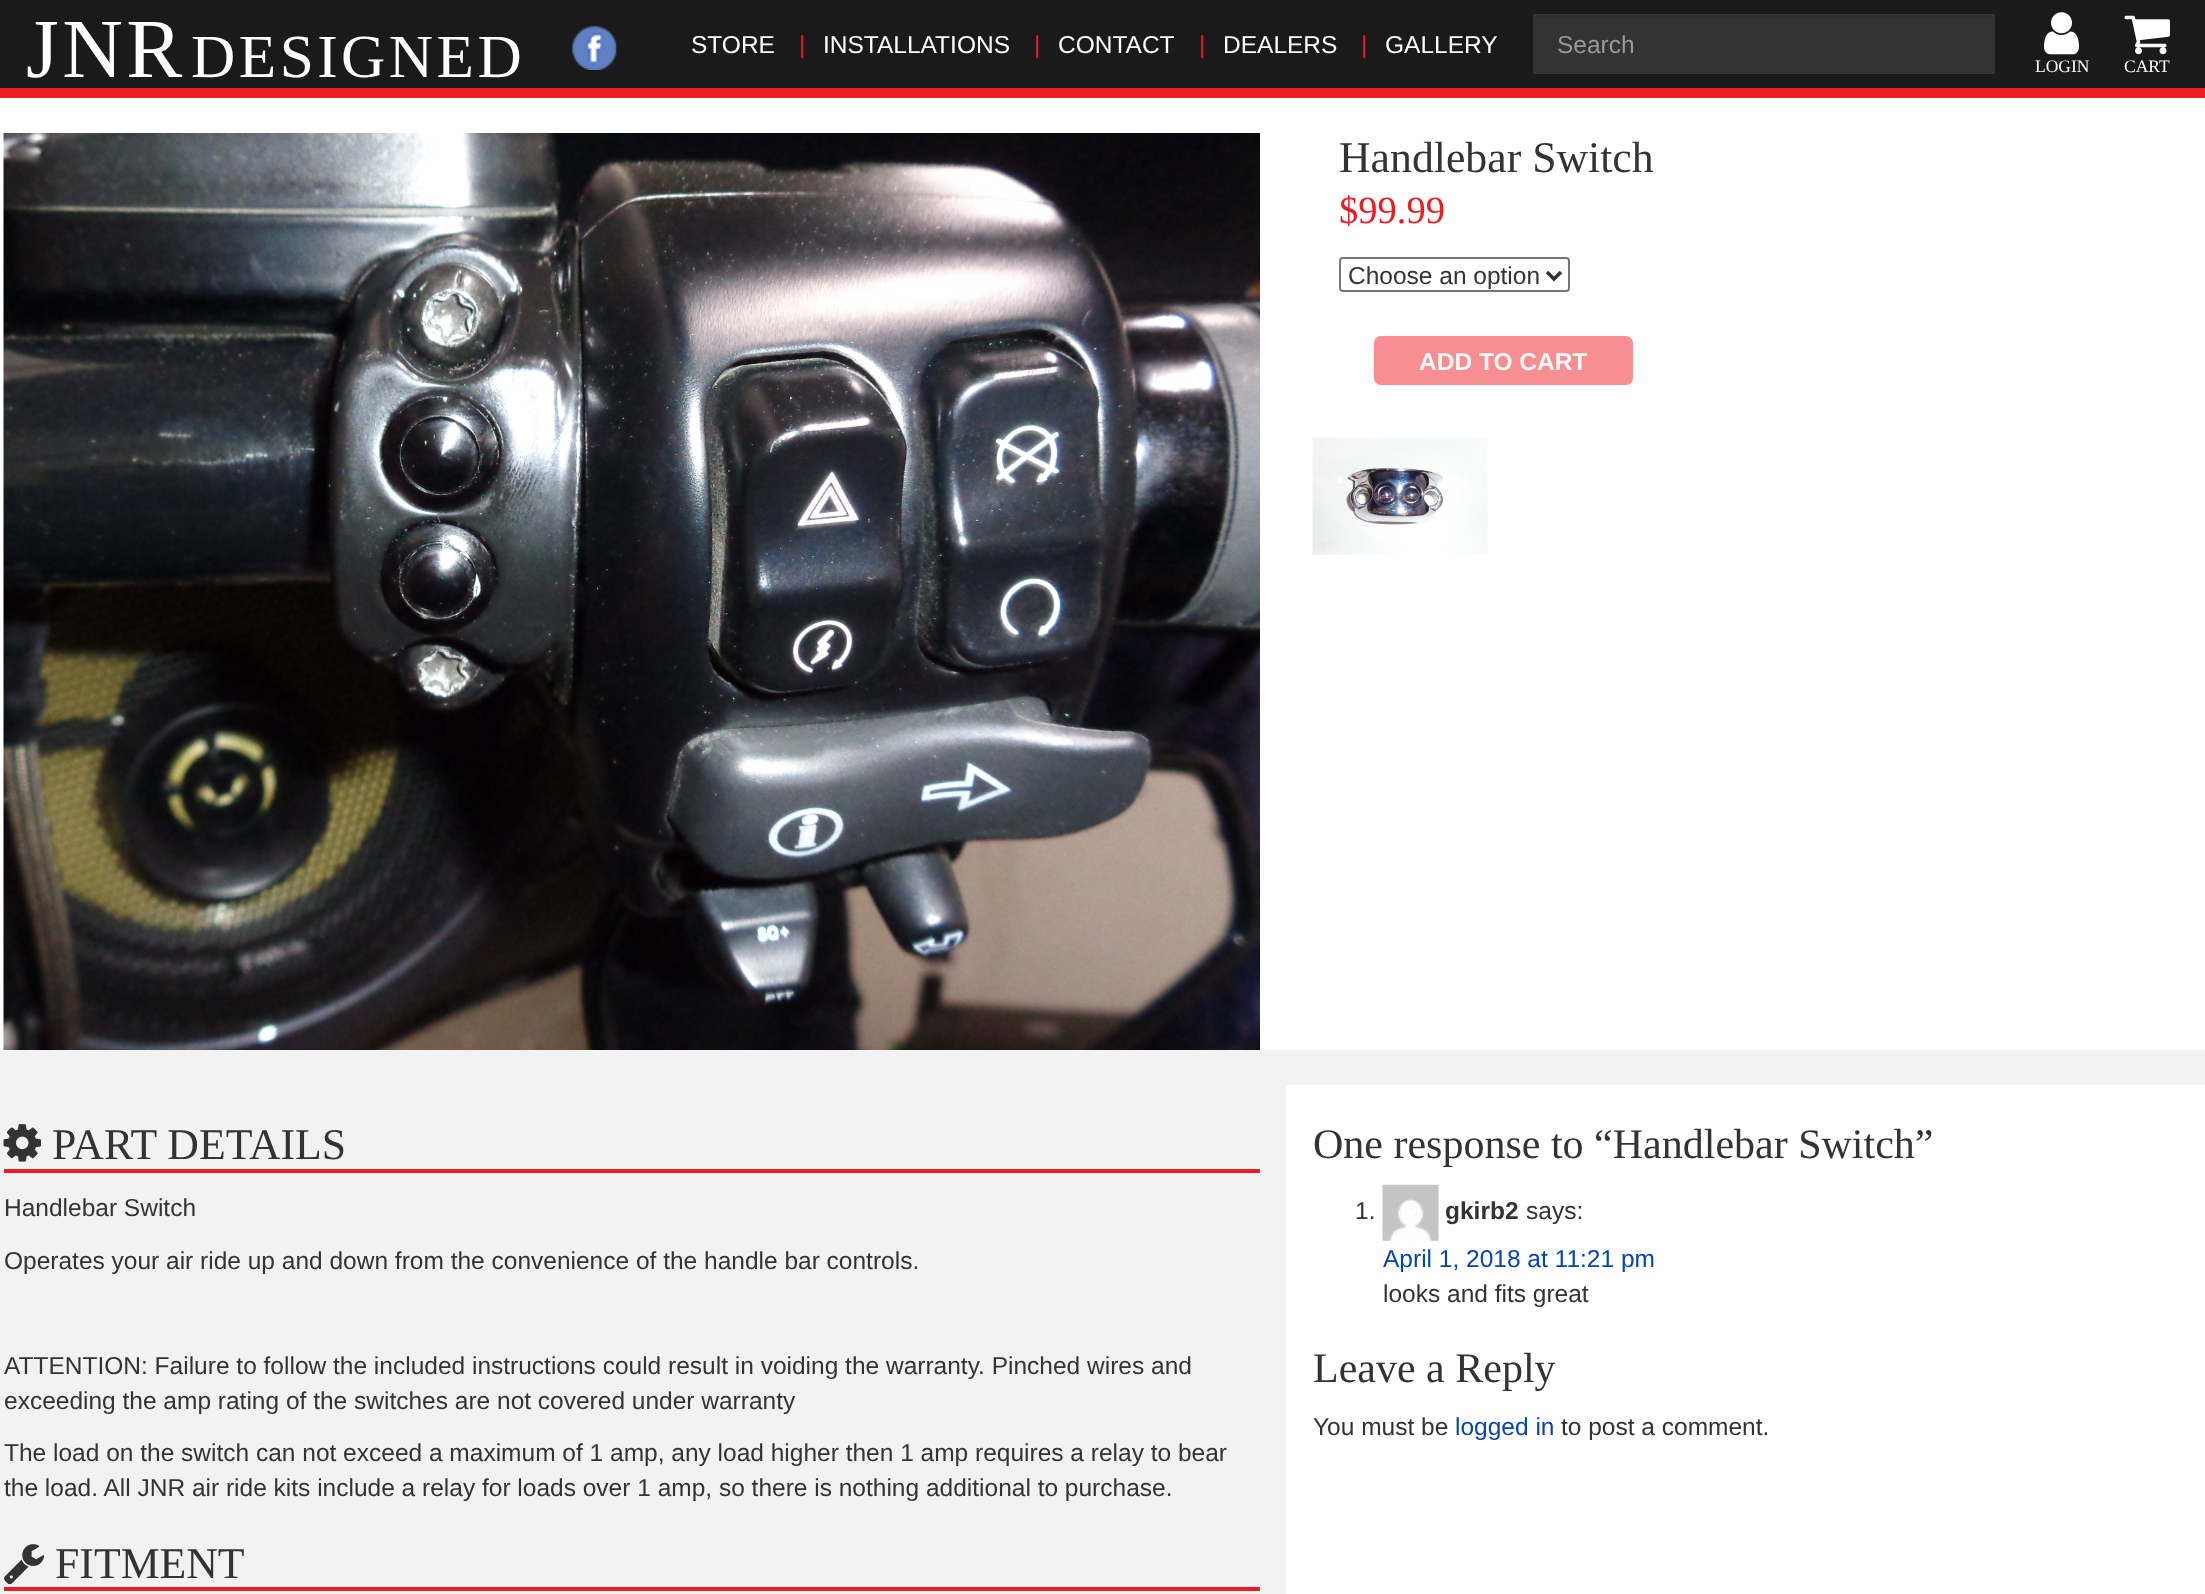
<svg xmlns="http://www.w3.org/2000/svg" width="2205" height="1594">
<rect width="100%" height="100%" fill="#f2f2f2"/>
<rect width="2205" height="88" fill="#1a1a1a"/>
<rect y="88" width="2205" height="10" fill="#ed1c24"/>
<text x="26" y="77" style="font-family:Liberation Serif;font-size:84px;letter-spacing:3.5px;fill:#fff">JNR</text>
<text x="191" y="77" style="font-family:Liberation Serif;font-size:61.25px;letter-spacing:3.5px;fill:#fff">DESIGNED</text>
<image x="571" y="25" width="46" height="45" href="media/1.png"/>
<text x="691" y="53" style="font-family:Liberation Sans;font-size:24.5px;fill:#fff">STORE</text>
<text x="799" y="53" style="font-family:Liberation Sans;font-size:24.5px;fill:#ed1c24">|</text>
<text x="823" y="53" style="font-family:Liberation Sans;font-size:24.5px;fill:#fff">INSTALLATIONS</text>
<text x="1034" y="53" style="font-family:Liberation Sans;font-size:24.5px;fill:#ed1c24">|</text>
<text x="1058" y="53" style="font-family:Liberation Sans;font-size:24.5px;fill:#fff">CONTACT</text>
<text x="1199" y="53" style="font-family:Liberation Sans;font-size:24.5px;fill:#ed1c24">|</text>
<text x="1223" y="53" style="font-family:Liberation Sans;font-size:24.5px;fill:#fff">DEALERS</text>
<text x="1361" y="53" style="font-family:Liberation Sans;font-size:24.5px;fill:#ed1c24">|</text>
<text x="1385" y="53" style="font-family:Liberation Sans;font-size:24.5px;fill:#fff">GALLERY</text>
<rect x="1533" y="14" width="462" height="60" fill="#333"/>
<rect x="1535" y="16" width="458" height="2" fill="#2f2f2f"/>
<text x="1557" y="53" style="font-family:Liberation Sans;font-size:24.5px;fill:#999">Search</text>
<image x="2044" y="12" width="35" height="43" href="media/2.png"/>
<text x="2035" y="72" style="font-family:Liberation Serif;font-size:17.5px;fill:#fff">LOGIN</text>
<image x="2124" y="15" width="46" height="40" href="media/3.png"/>
<text x="2124" y="72" style="font-family:Liberation Serif;font-size:17.5px;fill:#fff">CART</text>
<rect y="98" width="2205" height="952" fill="#fff"/>
<image x="3" y="133" width="1257" height="917" href="media/4.png"/>
<text x="1339" y="172" style="font-family:Liberation Serif;font-size:43.75px;fill:#333">Handlebar Switch</text>
<text x="1339" y="223" style="font-family:Liberation Serif;font-size:38.5px;fill:#ed1c24">$99.99</text>
<rect x="1340" y="258" width="229" height="33" rx="3" fill="none" stroke="#767676" stroke-width="2"/>
<path d="M1547 272l7 7l7-7" fill="none" stroke="#333" stroke-width="3.5"/>
<text x="1348" y="284" style="font-family:Liberation Sans;font-size:24.5px;fill:#333">Choose an option</text>
<rect x="1374" y="336" width="259" height="49" rx="7" fill="#f68e92"/>
<text x="1419" y="370" style="font-family:Liberation Sans;font-size:24.5px;font-weight:bold;fill:#f9f9f9">ADD TO CART</text>
<image x="1312" y="437" width="176" height="118" href="media/5.png"/>
<rect x="4" y="1169" width="1256" height="4" fill="#ed1c24"/>
<image x="3" y="1124" width="38" height="38" href="media/6.png"/>
<text x="52" y="1159" style="font-family:Liberation Serif;font-size:43.75px;fill:#333">PART DETAILS</text>
<text x="4" y="1216" style="font-family:Liberation Sans;font-size:24.5px;fill:#333">Handlebar Switch</text>
<text x="4" y="1269" style="font-family:Liberation Sans;font-size:24.5px;fill:#333">Operates your air ride up and down from the convenience of the handle bar controls.</text>
<text x="4" y="1374" style="font-family:Liberation Sans;font-size:24.5px;fill:#333">ATTENTION: Failure to follow the included instructions could result in voiding the warranty. Pinched wires and</text>
<text x="4" y="1409" style="font-family:Liberation Sans;font-size:24.5px;fill:#333">exceeding the amp rating of the switches are not covered under warranty</text>
<text x="4" y="1461" style="font-family:Liberation Sans;font-size:24.5px;fill:#333">The load on the switch can not exceed a maximum of 1 amp, any load higher then 1 amp requires a relay to bear</text>
<text x="4" y="1496" style="font-family:Liberation Sans;font-size:24.5px;fill:#333">the load. All JNR air ride kits include a relay for loads over 1 amp, so there is nothing additional to purchase.</text>
<rect x="4" y="1587" width="1256" height="4" fill="#ed1c24"/>
<image x="4" y="1544" width="41" height="41" href="media/7.png"/>
<text x="55" y="1578" style="font-family:Liberation Serif;font-size:43.75px;fill:#333">FITMENT</text>
<rect x="1286" y="1085" width="919" height="509" fill="#fff"/>
<text x="1313" y="1158" style="font-family:Liberation Serif;font-size:42px;fill:#333">One response to “Handlebar Switch”</text>
<text x="1355" y="1219" style="font-family:Liberation Sans;font-size:24.5px;fill:#333">1.</text>
<image x="1382" y="1184" width="57" height="57" href="media/8.png"/>
<text x="1445" y="1219" style="font-family:Liberation Sans;font-size:24.5px;font-weight:bold;fill:#333">gkirb2</text>
<text x="1526" y="1219" style="font-family:Liberation Sans;font-size:24.5px;fill:#333">says:</text>
<text x="1383" y="1267" style="font-family:Liberation Sans;font-size:24.5px;fill:#0645ad">April 1, 2018 at 11:21 pm</text>
<text x="1383" y="1302" style="font-family:Liberation Sans;font-size:24.5px;fill:#333">looks and fits great</text>
<text x="1313" y="1382" style="font-family:Liberation Serif;font-size:42px;fill:#333">Leave a Reply</text>
<text x="1313" y="1435" style="font-family:Liberation Sans;font-size:24.5px;fill:#333">You must be</text>
<text x="1455" y="1435" style="font-family:Liberation Sans;font-size:24.5px;fill:#0645ad">logged in</text>
<text x="1561" y="1435" style="font-family:Liberation Sans;font-size:24.5px;fill:#333">to post a comment.</text>
</svg>
